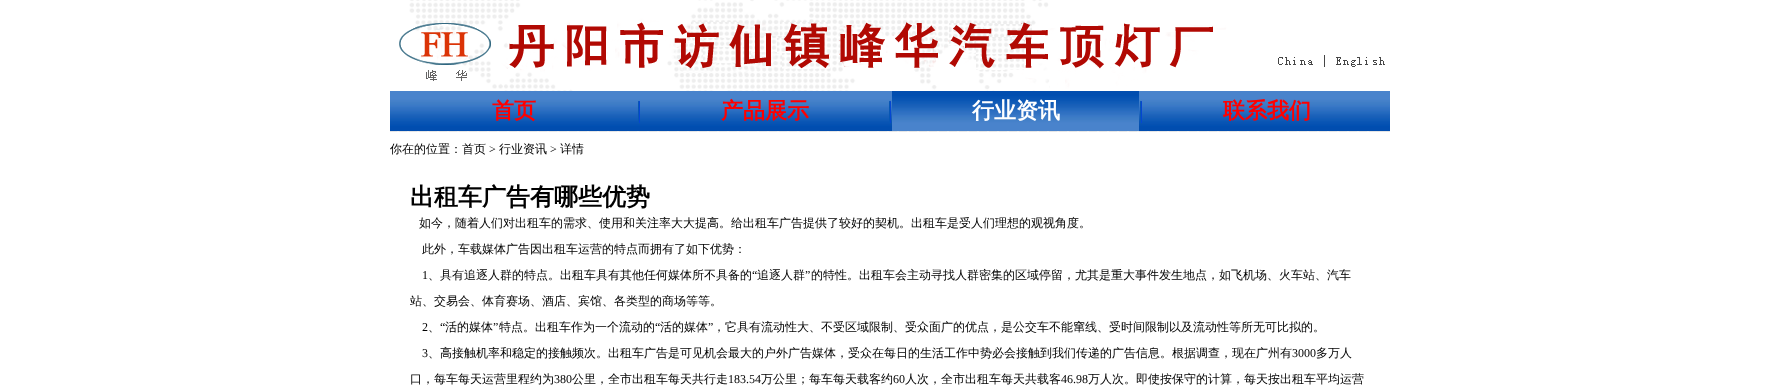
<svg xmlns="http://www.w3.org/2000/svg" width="1780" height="386">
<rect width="100%" height="100%" fill="#fff"/>
<image x="399" y="0" width="986" height="91" href="media/1.png"/>
<image x="390" y="91" width="247" height="40" href="media/2.png"/>
<text x="492" y="118" style="font-family:WenQuanYi Zen Hei;font-size:22px;font-weight:bold;fill:#f00">首页</text>
<image x="637" y="91" width="4" height="40" href="media/3.png"/>
<image x="641" y="91" width="247" height="40" href="media/2.png"/>
<text x="721" y="118" style="font-family:WenQuanYi Zen Hei;font-size:22px;font-weight:bold;fill:#f00">产品展示</text>
<image x="888" y="91" width="4" height="40" href="media/3.png"/>
<image x="892" y="91" width="247" height="40" href="media/4.png"/>
<text x="972" y="118" style="font-family:WenQuanYi Zen Hei;font-size:22px;font-weight:bold;fill:#fff">行业资讯</text>
<image x="1139" y="91" width="4" height="40" href="media/3.png"/>
<image x="1143" y="91" width="247" height="40" href="media/2.png"/>
<text x="1223" y="118" style="font-family:WenQuanYi Zen Hei;font-size:22px;font-weight:bold;fill:#f00">联系我们</text>
<image x="390" y="131" width="1000" height="1" href="media/5.png"/>
<text x="390" y="153" style="font-family:WenQuanYi Zen Hei;font-size:12px;font-weight:500;fill:#000">你在的位置：首页</text>
<text x="489" y="153" style="font-family:Liberation Serif;font-size:12px;fill:#000">&gt;</text>
<text x="499" y="153" style="font-family:WenQuanYi Zen Hei;font-size:12px;font-weight:500;fill:#000">行业资讯</text>
<text x="550" y="153" style="font-family:Liberation Serif;font-size:12px;fill:#000">&gt;</text>
<text x="560" y="153" style="font-family:WenQuanYi Zen Hei;font-size:12px;font-weight:500;fill:#000">详情</text>
<text x="410" y="205" style="font-family:WenQuanYi Zen Hei;font-size:24px;font-weight:bold;fill:#000">出租车广告有哪些优势</text>
<text x="419" y="227" style="font-family:WenQuanYi Zen Hei;font-size:12px;font-weight:500;fill:#000">如今，随着人们对出租车的需求、使用和关注率大大提高。给出租车广告提供了较好的契机。出租车是受人们理想的观视角度。</text>
<text x="422" y="253" style="font-family:WenQuanYi Zen Hei;font-size:12px;font-weight:500;fill:#000">此外，车载媒体广告因出租车运营的特点而拥有了如下优势：</text>
<text x="422" y="279" style="font-family:Liberation Serif;font-size:12px;fill:#000">1</text>
<text x="428" y="279" style="font-family:WenQuanYi Zen Hei;font-size:12px;font-weight:500;fill:#000">、具有追逐人群的特点。出租车具有其他任何媒体所不具备的</text>
<text x="752" y="279" style="font-family:Liberation Serif;font-size:12px;fill:#000">“</text>
<text x="757" y="279" style="font-family:WenQuanYi Zen Hei;font-size:12px;font-weight:500;fill:#000">追逐人群</text>
<text x="805" y="279" style="font-family:Liberation Serif;font-size:12px;fill:#000">”</text>
<text x="811" y="279" style="font-family:WenQuanYi Zen Hei;font-size:12px;font-weight:500;fill:#000">的特性。出租车会主动寻找人群密集的区域停留，尤其是重大事件发生地点，如飞机场、火车站、汽车</text>
<text x="410" y="305" style="font-family:WenQuanYi Zen Hei;font-size:12px;font-weight:500;fill:#000">站、交易会、体育赛场、酒店、宾馆、各类型的商场等等。</text>
<text x="422" y="331" style="font-family:Liberation Serif;font-size:12px;fill:#000">2</text>
<text x="440" y="331" style="font-family:Liberation Serif;font-size:12px;fill:#000">“</text>
<text x="445" y="331" style="font-family:WenQuanYi Zen Hei;font-size:12px;font-weight:500;fill:#000">活的媒体</text>
<text x="493" y="331" style="font-family:Liberation Serif;font-size:12px;fill:#000">”</text>
<text x="499" y="331" style="font-family:WenQuanYi Zen Hei;font-size:12px;font-weight:500;fill:#000">特点。出租车作为一个流动的</text>
<text x="655" y="331" style="font-family:Liberation Serif;font-size:12px;fill:#000">“</text>
<text x="660" y="331" style="font-family:WenQuanYi Zen Hei;font-size:12px;font-weight:500;fill:#000">活的媒体</text>
<text x="708" y="331" style="font-family:Liberation Serif;font-size:12px;fill:#000">”</text>
<text x="713" y="331" style="font-family:WenQuanYi Zen Hei;font-size:12px;font-weight:500;fill:#000">，它具有流动性大、不受区域限制、受众面广的优点，是公交车不能窜线、受时间限制以及流动性等所无可比拟的。</text>
<text x="428" y="331" style="font-family:WenQuanYi Zen Hei;font-size:12px;font-weight:500;fill:#000">、</text>
<text x="422" y="357" style="font-family:Liberation Serif;font-size:12px;fill:#000">3</text>
<text x="428" y="357" style="font-family:WenQuanYi Zen Hei;font-size:12px;font-weight:500;fill:#000">、高接触机率和稳定的接触频次。出租车广告是可见机会最大的户外广告媒体，受众在每日的生活工作中势必会接触到我们传递的广告信息。根据调查，现在广州有</text>
<text x="1292" y="357" style="font-family:Liberation Serif;font-size:12px;fill:#000">3000</text>
<text x="1316" y="357" style="font-family:WenQuanYi Zen Hei;font-size:12px;font-weight:500;fill:#000">多万人</text>
<text x="410" y="383" style="font-family:WenQuanYi Zen Hei;font-size:12px;font-weight:500;fill:#000">口，每车每天运营里程约为</text>
<text x="554" y="383" style="font-family:Liberation Serif;font-size:12px;fill:#000">380</text>
<text x="572" y="383" style="font-family:WenQuanYi Zen Hei;font-size:12px;font-weight:500;fill:#000">公里，全市出租车每天共行走</text>
<text x="728" y="383" style="font-family:Liberation Serif;font-size:12px;fill:#000">183.54</text>
<text x="761" y="383" style="font-family:WenQuanYi Zen Hei;font-size:12px;font-weight:500;fill:#000">万公里；每车每天载客约</text>
<text x="893" y="383" style="font-family:Liberation Serif;font-size:12px;fill:#000">60</text>
<text x="905" y="383" style="font-family:WenQuanYi Zen Hei;font-size:12px;font-weight:500;fill:#000">人次，全市出租车每天共载客</text>
<text x="1061" y="383" style="font-family:Liberation Serif;font-size:12px;fill:#000">46.98</text>
<text x="1088" y="383" style="font-family:WenQuanYi Zen Hei;font-size:12px;font-weight:500;fill:#000">万人次。即使按保守的计算，每天按出租车平均运营</text>
</svg>
